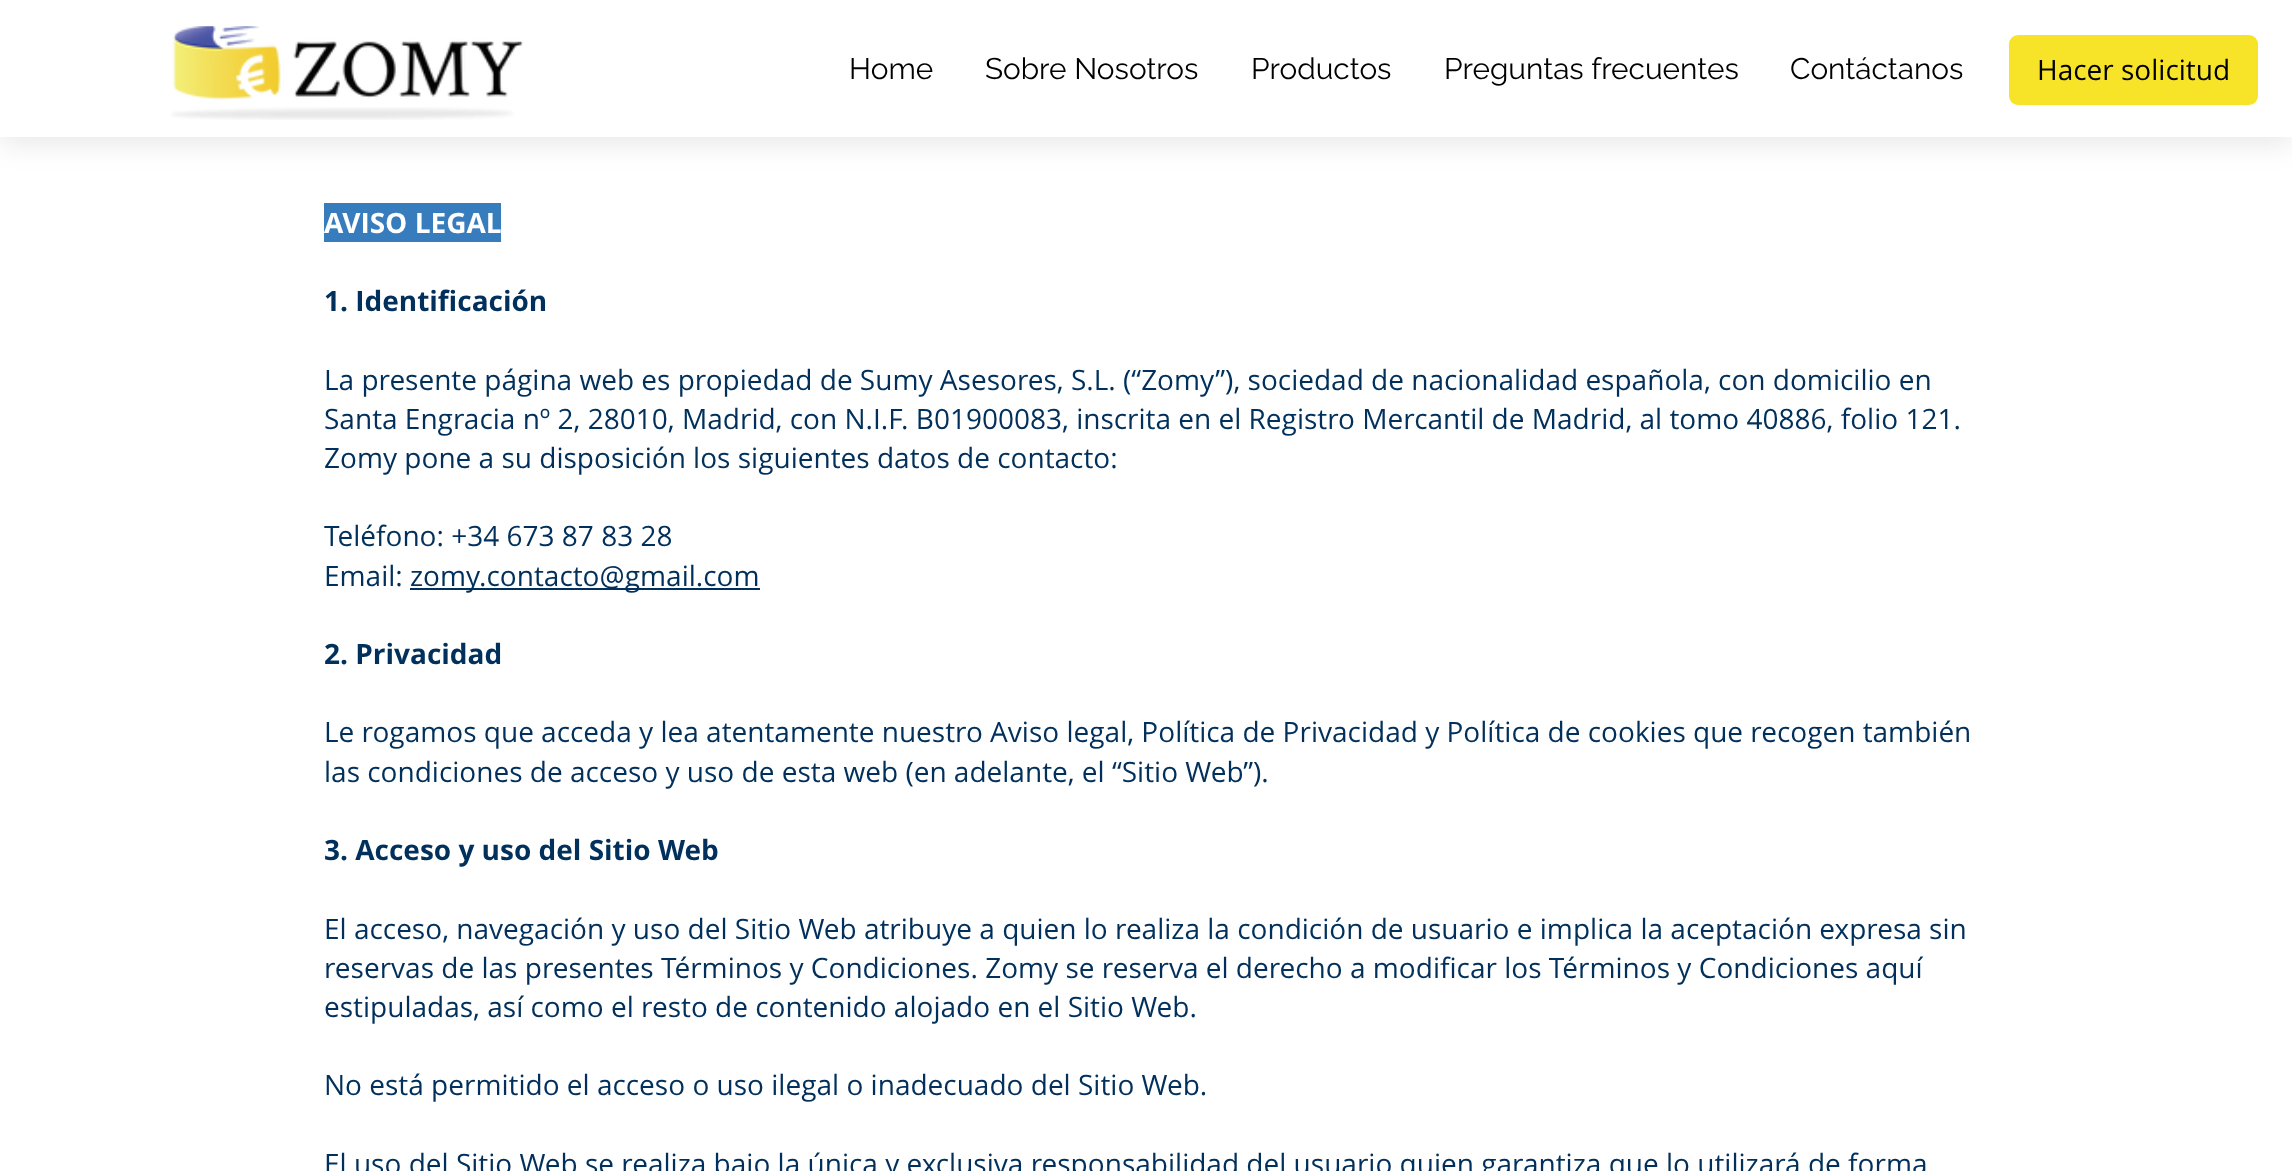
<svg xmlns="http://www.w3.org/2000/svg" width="2292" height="1171">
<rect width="100%" height="100%" fill="#fff"/>
<rect y="7" width="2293" height="137" fill="#00000017" filter="blur(14px)"/>
<rect width="2292" height="137" fill="#fff"/>
<image x="171" y="26" width="353" height="94" href="media/1.png"/>
<text x="849" y="79" style="font-family:Raleway;font-size:29.75px;fill:#000">Home</text>
<text x="985" y="79" style="font-family:Raleway;font-size:29.75px;fill:#000">Sobre Nosotros</text>
<text x="1251" y="79" style="font-family:Raleway;font-size:29.75px;fill:#000">Productos</text>
<text x="1444" y="79" style="font-family:Raleway;font-size:29.75px;fill:#000">Preguntas frecuentes</text>
<text x="1790" y="79" style="font-family:Raleway;font-size:29.75px;fill:#000">Contáctanos</text>
<rect x="2009" y="35" width="249" height="70" rx="9" fill="#f7e328"/>
<text x="2037" y="80" style="font-family:Open Sans;font-size:28px;fill:#000">Hacer solicitud</text>
<rect x="324" y="203" width="177" height="39" fill="#377dbd"/>
<text x="324" y="233" style="font-family:Open Sans;font-size:28px;font-weight:bold;fill:#fff">AVISO LEGAL</text>
<text x="324" y="311" style="font-family:Open Sans;font-size:28px;font-weight:bold;fill:#00305b">1. Identificación</text>
<text x="324" y="390" style="font-family:Open Sans;font-size:28px;fill:#00305b">La presente página web es propiedad de Sumy Asesores, S.L. (“Zomy”), sociedad de nacionalidad española, con domicilio en</text>
<text x="324" y="429" style="font-family:Open Sans;font-size:28px;fill:#00305b">Santa Engracia nº 2, 28010, Madrid, con N.I.F. B01900083, inscrita en el Registro Mercantil de Madrid, al tomo 40886, folio 121.</text>
<text x="324" y="468" style="font-family:Open Sans;font-size:28px;fill:#00305b">Zomy pone a su disposición los siguientes datos de contacto:</text>
<text x="324" y="546" style="font-family:Open Sans;font-size:28px;fill:#00305b">Teléfono: +34 673 87 83 28</text>
<text x="324" y="586" style="font-family:Open Sans;font-size:28px;fill:#00305b">Email:</text>
<rect x="410" y="588" width="350" height="2" fill="#00305b"/>
<text x="410" y="586" style="font-family:Open Sans;font-size:28px;fill:#00305b">zomy.contacto@gmail.com</text>
<text x="324" y="664" style="font-family:Open Sans;font-size:28px;font-weight:bold;fill:#00305b">2. Privacidad</text>
<text x="324" y="742" style="font-family:Open Sans;font-size:28px;fill:#00305b">Le rogamos que acceda y lea atentamente nuestro Aviso legal, Política de Privacidad y Política de cookies que recogen también</text>
<text x="324" y="782" style="font-family:Open Sans;font-size:28px;fill:#00305b">las condiciones de acceso y uso de esta web (en adelante, el “Sitio Web”).</text>
<text x="324" y="860" style="font-family:Open Sans;font-size:28px;font-weight:bold;fill:#00305b">3. Acceso y uso del Sitio Web</text>
<text x="324" y="939" style="font-family:Open Sans;font-size:28px;fill:#00305b">El acceso, navegación y uso del Sitio Web atribuye a quien lo realiza la condición de usuario e implica la aceptación expresa sin</text>
<text x="324" y="978" style="font-family:Open Sans;font-size:28px;fill:#00305b">reservas de las presentes Términos y Condiciones. Zomy se reserva el derecho a modificar los Términos y Condiciones aquí</text>
<text x="324" y="1017" style="font-family:Open Sans;font-size:28px;fill:#00305b">estipuladas, así como el resto de contenido alojado en el Sitio Web.</text>
<text x="324" y="1095" style="font-family:Open Sans;font-size:28px;fill:#00305b">No está permitido el acceso o uso ilegal o inadecuado del Sitio Web.</text>
<text x="324" y="1174" style="font-family:Open Sans;font-size:28px;fill:#00305b">El uso del Sitio Web se realiza bajo la única y exclusiva responsabilidad del usuario quien garantiza que lo utilizará de forma</text>
</svg>
